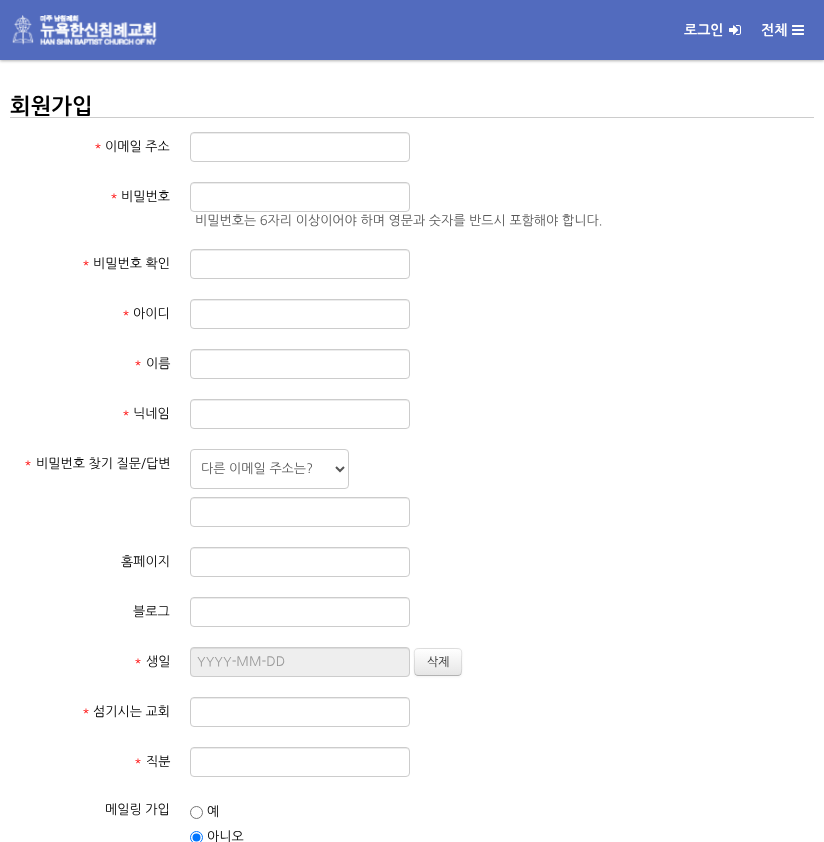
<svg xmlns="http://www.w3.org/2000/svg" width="824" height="842">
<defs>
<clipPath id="clip1"><rect x="414" y="648" width="48" height="28" rx="4"/></clipPath>
<linearGradient id="g1" gradientUnits="userSpaceOnUse" x1="438" y1="649" x2="438" y2="675"><stop offset="0" stop-color="#fff"/><stop offset="1" stop-color="#e6e6e6"/></linearGradient>
</defs>
<rect width="100%" height="100%" fill="#fff"/>
<rect y="1" width="824" height="60" fill="#0000004d" filter="blur(1.5px)"/>
<rect width="824" height="60" fill="#526bbe"/>
<image x="12" y="15" width="145" height="30" href="media/1.png"/>
<text x="684" y="35" style="font-family:NanumGothic;font-size:14px;font-weight:bold;fill:#fff">로그인</text>
<image x="729" y="25" width="12" height="10" href="media/2.png"/>
<text x="761" y="35" style="font-family:NanumGothic;font-size:14px;font-weight:bold;fill:#fff">전체</text>
<image x="792" y="25" width="12" height="10" href="media/3.png"/>
<rect x="10" y="117" width="804" height="1" fill="#ccc"/>
<text x="10" y="114" style="font-family:NanumGothic;font-size:22px;font-weight:bold;fill:#000">회원가입</text>
<text x="94" y="151" style="font-family:NanumGothic;font-size:13px;fill:#f00">*</text>
<text x="105" y="151" style="font-family:NanumGothic;font-size:13px;fill:#000">이메일 주소</text>
<path d="M194 134h212c2 0 3 1 3 3v-1c0-2-1-3-3-3h-212c-2 0-3 1-3 3v1c0-2 1-3 3-3z" fill="#ececec"/>
<rect x="190.5" y="132.5" width="219" height="29" rx="3.5" fill="none" stroke="#ccc"/>
<text x="110" y="201" style="font-family:NanumGothic;font-size:13px;fill:#f00">*</text>
<text x="121" y="201" style="font-family:NanumGothic;font-size:13px;fill:#000">비밀번호</text>
<path d="M194 184h212c2 0 3 1 3 3v-1c0-2-1-3-3-3h-212c-2 0-3 1-3 3v1c0-2 1-3 3-3z" fill="#ececec"/>
<rect x="190.5" y="182.5" width="219" height="29" rx="3.5" fill="none" stroke="#ccc"/>
<text x="195" y="225" style="font-family:NanumGothic;font-size:13px;fill:#595959">비밀번호는 6자리 이상이어야 하며 영문과 숫자를 반드시 포함해야 합니다.</text>
<text x="82" y="268" style="font-family:NanumGothic;font-size:13px;fill:#f00">*</text>
<text x="93" y="268" style="font-family:NanumGothic;font-size:13px;fill:#000">비밀번호 확인</text>
<path d="M194 251h212c2 0 3 1 3 3v-1c0-2-1-3-3-3h-212c-2 0-3 1-3 3v1c0-2 1-3 3-3z" fill="#ececec"/>
<rect x="190.5" y="249.5" width="219" height="29" rx="3.5" fill="none" stroke="#ccc"/>
<text x="122" y="318" style="font-family:NanumGothic;font-size:13px;fill:#f00">*</text>
<text x="133" y="318" style="font-family:NanumGothic;font-size:13px;fill:#000">아이디</text>
<path d="M194 301h212c2 0 3 1 3 3v-1c0-2-1-3-3-3h-212c-2 0-3 1-3 3v1c0-2 1-3 3-3z" fill="#ececec"/>
<rect x="190.5" y="299.5" width="219" height="29" rx="3.5" fill="none" stroke="#ccc"/>
<text x="134" y="368" style="font-family:NanumGothic;font-size:13px;fill:#f00">*</text>
<text x="146" y="368" style="font-family:NanumGothic;font-size:13px;fill:#000">이름</text>
<path d="M194 351h212c2 0 3 1 3 3v-1c0-2-1-3-3-3h-212c-2 0-3 1-3 3v1c0-2 1-3 3-3z" fill="#ececec"/>
<rect x="190.5" y="349.5" width="219" height="29" rx="3.5" fill="none" stroke="#ccc"/>
<text x="122" y="418" style="font-family:NanumGothic;font-size:13px;fill:#f00">*</text>
<text x="133" y="418" style="font-family:NanumGothic;font-size:13px;fill:#000">닉네임</text>
<path d="M194 401h212c2 0 3 1 3 3v-1c0-2-1-3-3-3h-212c-2 0-3 1-3 3v1c0-2 1-3 3-3z" fill="#ececec"/>
<rect x="190.5" y="399.5" width="219" height="29" rx="3.5" fill="none" stroke="#ccc"/>
<text x="24" y="468" style="font-family:NanumGothic;font-size:13px;fill:#f00">*</text>
<text x="36" y="468" style="font-family:NanumGothic;font-size:13px;fill:#000">비밀번호 찾기 질문/답변</text>
<rect x="190.5" y="449.5" width="158" height="39" rx="3.5" fill="none" stroke="#ccc"/>
<path d="M336 467l4 4l4-4" fill="none" stroke="#555" stroke-width="2"/>
<text x="201" y="473" style="font-family:NanumGothic;font-size:13px;fill:#595959">다른 이메일 주소는?</text>
<path d="M194 499h212c2 0 3 1 3 3v-1c0-2-1-3-3-3h-212c-2 0-3 1-3 3v1c0-2 1-3 3-3z" fill="#ececec"/>
<rect x="190.5" y="497.5" width="219" height="29" rx="3.5" fill="none" stroke="#ccc"/>
<text x="121" y="566" style="font-family:NanumGothic;font-size:13px;fill:#000">홈페이지</text>
<path d="M194 549h212c2 0 3 1 3 3v-1c0-2-1-3-3-3h-212c-2 0-3 1-3 3v1c0-2 1-3 3-3z" fill="#ececec"/>
<rect x="190.5" y="547.5" width="219" height="29" rx="3.5" fill="none" stroke="#ccc"/>
<text x="133" y="616" style="font-family:NanumGothic;font-size:13px;fill:#000">블로그</text>
<path d="M194 599h212c2 0 3 1 3 3v-1c0-2-1-3-3-3h-212c-2 0-3 1-3 3v1c0-2 1-3 3-3z" fill="#ececec"/>
<rect x="190.5" y="597.5" width="219" height="29" rx="3.5" fill="none" stroke="#ccc"/>
<text x="134" y="666" style="font-family:NanumGothic;font-size:13px;fill:#f00">*</text>
<text x="146" y="666" style="font-family:NanumGothic;font-size:13px;fill:#000">생일</text>
<rect x="190" y="647" width="220" height="30" rx="4" fill="#eee"/>
<path d="M194 649h212c2 0 3 1 3 3v-1c0-2-1-3-3-3h-212c-2 0-3 1-3 3v1c0-2 1-3 3-3z" fill="#dcdcdc"/>
<rect x="190.5" y="647.5" width="219" height="29" rx="3.5" fill="none" stroke="#ccc"/>
<text x="197" y="666" style="font-family:NanumGothic;font-size:13px;fill:#999">YYYY-MM-DD</text>
<rect x="414" y="649" width="48" height="28" rx="4" fill="#0000000d" filter="blur(1px)"/>
<rect x="414" y="648" width="48" height="28" rx="4" fill="#f5f5f5"/>
<g clip-path="url(#clip1)">
<rect x="414" y="649" width="48" height="26" fill="url(#g1)"/>
</g>
<path d="M460.5 674.5c-.5 .5-1.5 1-2.5 1h-40c-1 0-2-.5-2.5-1" fill="none" stroke="#b3b3b3"/>
<path d="M415.5 674.5c-2-2.5-1-10-1-12.5c0-13-2.5-13.5 10-13.5h27c12.5 0 10 .5 10 13.5c0 2.5 1 10-1 12.5" fill="none" stroke="#0000001a"/>
<text x="427" y="666" style="font-family:NanumGothic;font-size:12px;fill:#333">삭제</text>
<text x="82" y="716" style="font-family:NanumGothic;font-size:13px;fill:#f00">*</text>
<text x="93" y="716" style="font-family:NanumGothic;font-size:13px;fill:#000">섬기시는 교회</text>
<path d="M194 699h212c2 0 3 1 3 3v-1c0-2-1-3-3-3h-212c-2 0-3 1-3 3v1c0-2 1-3 3-3z" fill="#ececec"/>
<rect x="190.5" y="697.5" width="219" height="29" rx="3.5" fill="none" stroke="#ccc"/>
<text x="134" y="766" style="font-family:NanumGothic;font-size:13px;fill:#f00">*</text>
<text x="146" y="766" style="font-family:NanumGothic;font-size:13px;fill:#000">직분</text>
<path d="M194 749h212c2 0 3 1 3 3v-1c0-2-1-3-3-3h-212c-2 0-3 1-3 3v1c0-2 1-3 3-3z" fill="#ececec"/>
<rect x="190.5" y="747.5" width="219" height="29" rx="3.5" fill="none" stroke="#ccc"/>
<text x="105" y="814" style="font-family:NanumGothic;font-size:13px;fill:#000">메일링 가입</text>
<circle cx="196.5" cy="812.5" r="6" fill="none" stroke="#767676"/>
<text x="207" y="816" style="font-family:NanumGothic;font-size:13px;fill:#000">예</text>
<circle cx="196.5" cy="837.5" r="6" fill="none" stroke="#0075ff"/>
<circle cx="196.5" cy="837.5" r="4" fill="#0075ff"/>
<text x="207" y="841" style="font-family:NanumGothic;font-size:13px;fill:#000">아니오</text>
</svg>
